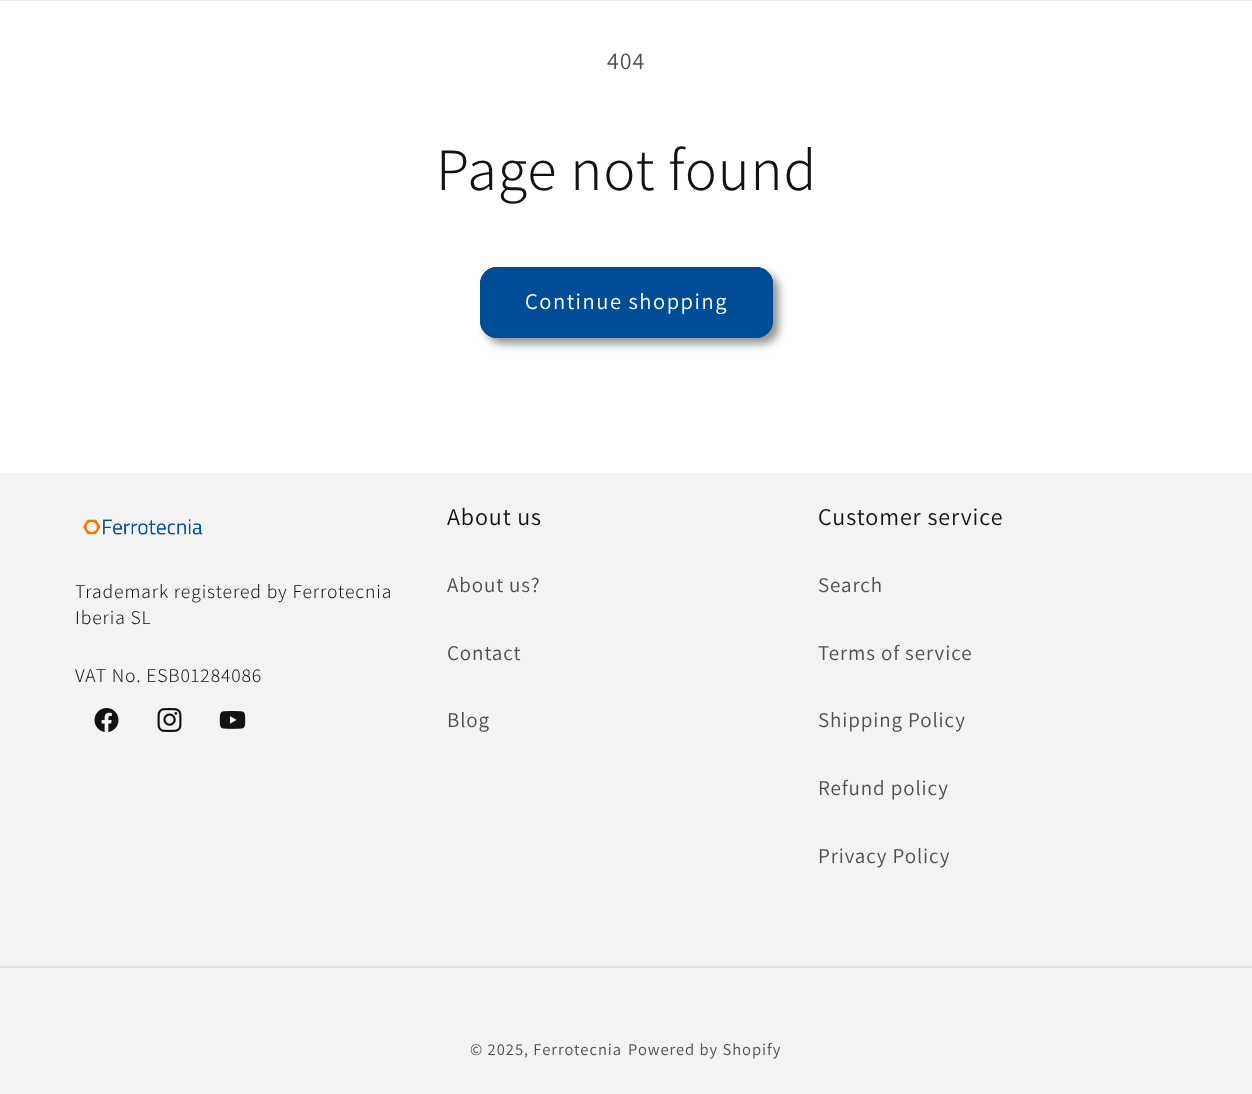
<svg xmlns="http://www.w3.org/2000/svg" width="1252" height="1094">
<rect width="100%" height="100%" fill="#fff"/>
<rect width="1252" height="1" fill="#ececec"/>
<text x="607" y="69" style="font-family:Assistant;font-size:24px;letter-spacing:0.9px;fill:#4d4d4d">404</text>
<text x="436" y="190" style="font-family:Assistant;font-size:60px;font-weight:300;letter-spacing:0.9px;fill:#121212">Page not found</text>
<rect x="486" y="273" width="293" height="71" rx="17" fill="#12121273" filter="blur(4px)"/>
<rect x="480" y="267" width="293" height="71" rx="17" fill="#004c97"/>
<rect x="481" y="268" width="291" height="69" rx="16" fill="none" stroke="#004c97" stroke-width="2"/>
<text x="525" y="309" style="font-family:Assistant;font-size:22.5px;letter-spacing:1.5px;fill:#fff">Continue shopping</text>
<rect y="473" width="1252" height="621" fill="#f3f3f3"/>
<image x="83" y="519" width="120" height="16" href="media/1.png"/>
<text x="75" y="598" style="font-family:Assistant;font-size:19.5px;font-weight:300;letter-spacing:0.9px;fill:#121212">Trademark registered by Ferrotecnia</text>
<text x="75" y="624" style="font-family:Assistant;font-size:19.5px;font-weight:300;letter-spacing:0.9px;fill:#121212">Iberia SL</text>
<text x="75" y="682" style="font-family:Assistant;font-size:19.5px;font-weight:300;letter-spacing:0.9px;fill:#121212">VAT No. ESB01284086</text>
<image x="94" y="708" width="25" height="24" href="media/2.png"/>
<image x="157" y="708" width="25" height="24" href="media/3.png"/>
<image x="219" y="711" width="27" height="18" href="media/4.png"/>
<text x="447" y="525" style="font-family:Assistant;font-size:24px;letter-spacing:0.9px;fill:#121212">About us</text>
<text x="447" y="592" style="font-family:Assistant;font-size:21px;letter-spacing:0.9px;fill:#4d4d4d">About us?</text>
<text x="447" y="660" style="font-family:Assistant;font-size:21px;letter-spacing:0.9px;fill:#4d4d4d">Contact</text>
<text x="447" y="727" style="font-family:Assistant;font-size:21px;letter-spacing:0.9px;fill:#4d4d4d">Blog</text>
<text x="818" y="525" style="font-family:Assistant;font-size:24px;letter-spacing:0.9px;fill:#121212">Customer service</text>
<text x="818" y="592" style="font-family:Assistant;font-size:21px;letter-spacing:0.9px;fill:#4d4d4d">Search</text>
<text x="818" y="660" style="font-family:Assistant;font-size:21px;letter-spacing:0.9px;fill:#4d4d4d">Terms of service</text>
<text x="818" y="727" style="font-family:Assistant;font-size:21px;letter-spacing:0.9px;fill:#4d4d4d">Shipping Policy</text>
<text x="818" y="795" style="font-family:Assistant;font-size:21px;letter-spacing:0.9px;fill:#4d4d4d">Refund policy</text>
<text x="818" y="863" style="font-family:Assistant;font-size:21px;letter-spacing:0.9px;fill:#4d4d4d">Privacy Policy</text>
<rect y="966" width="1252" height="2" fill="#e1e1e1"/>
<text x="470" y="1055" style="font-family:Assistant;font-size:16.5px;letter-spacing:1px;fill:#4d4d4d">© 2025, Ferrotecnia</text>
<text x="628" y="1055" style="font-family:Assistant;font-size:16.5px;letter-spacing:1px;fill:#4d4d4d">Powered by Shopify</text>
</svg>
